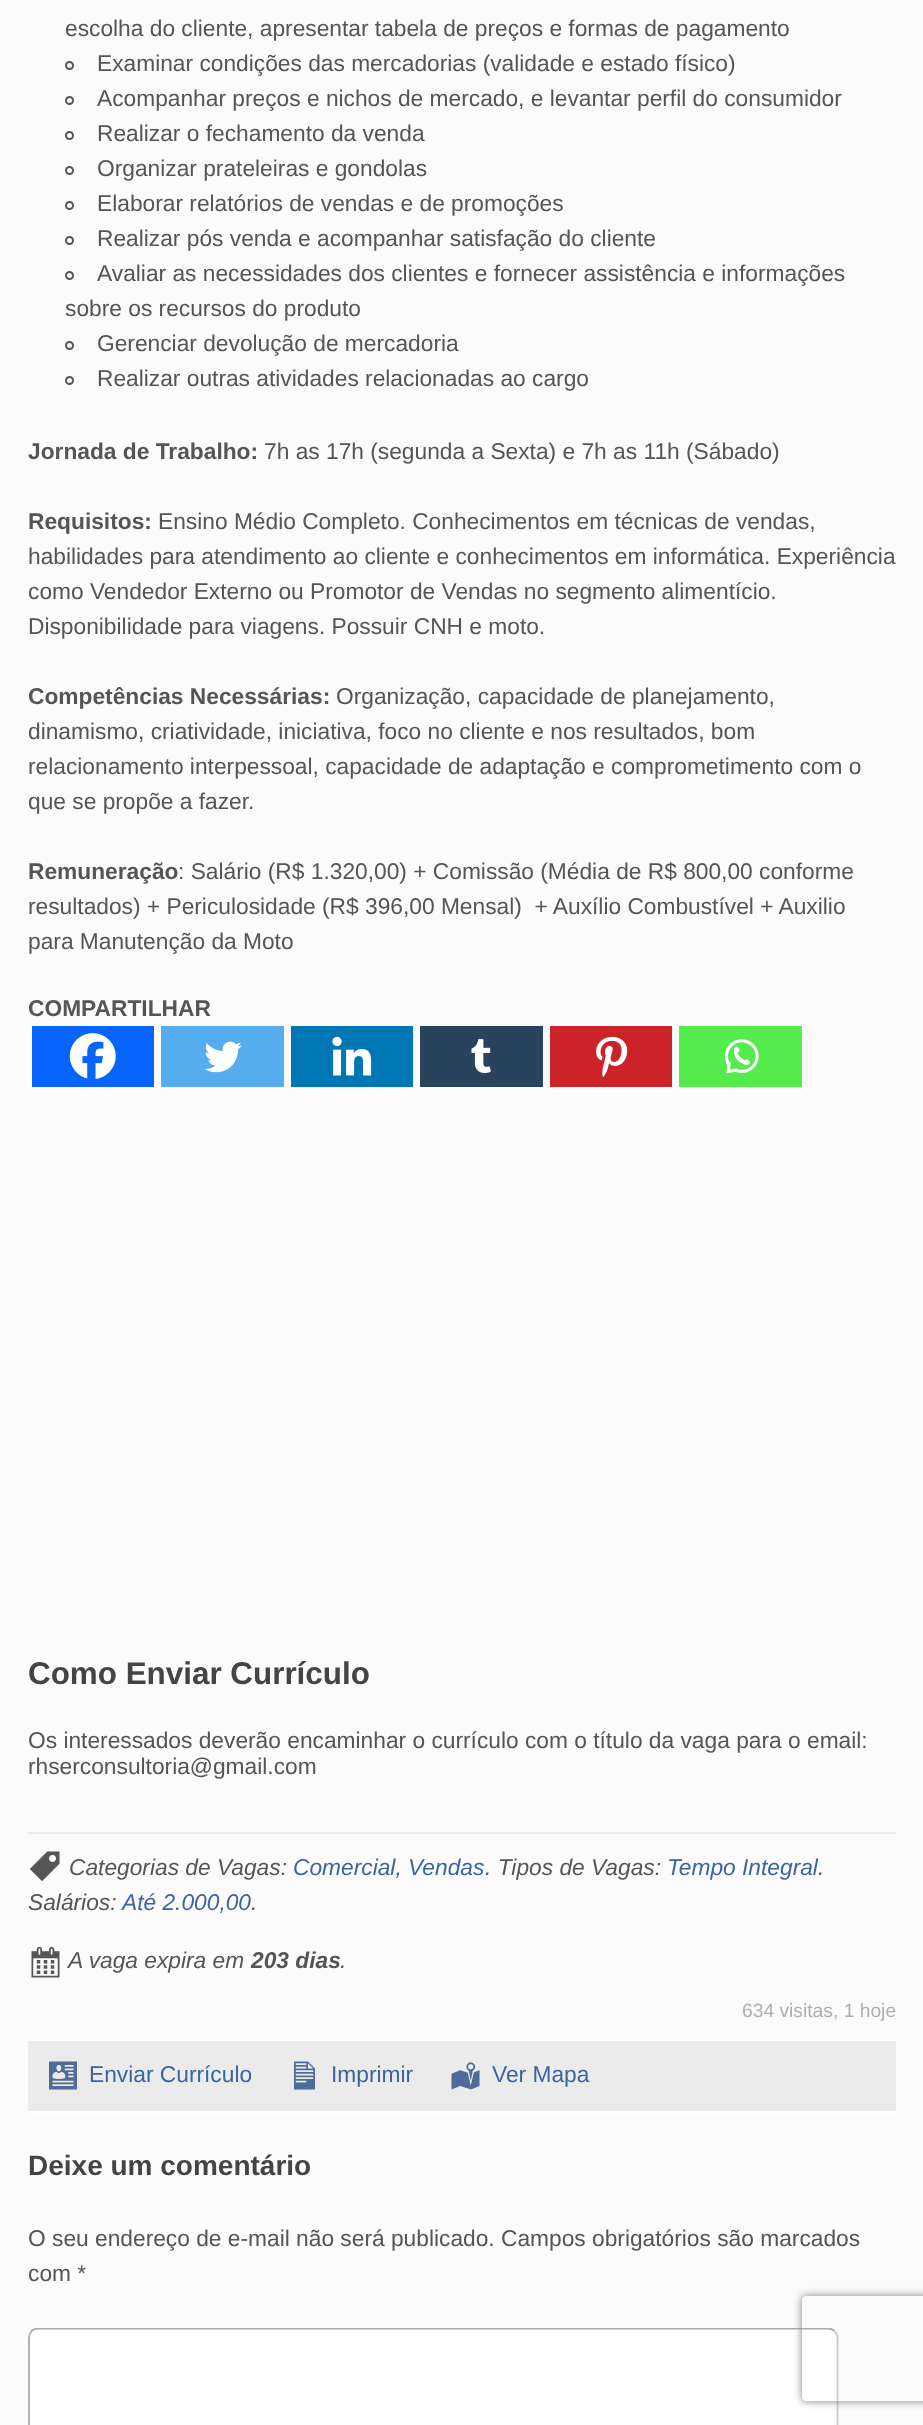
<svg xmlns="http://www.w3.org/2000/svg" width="923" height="2425">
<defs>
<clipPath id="clip1"><rect x="28" y="2328" width="868" height="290"/></clipPath>
<clipPath id="clip2"><path d="M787 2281h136v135h-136zm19 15h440c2 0 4 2 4 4v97c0 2-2 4-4 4h-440c-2 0-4-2-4-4v-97c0-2 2-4 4-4z" clip-rule="evenodd"/></clipPath>
</defs>
<rect width="100%" height="100%" fill="#fbfbfb"/>
<text x="65" y="36" style="font-family:Liberation Sans;font-size:22.75px;fill:#555">escolha do cliente, apresentar tabela de preços e formas de pagamento</text>
<circle cx="69.5" cy="65.5" r="3.5" fill="none" stroke="#555" stroke-width="2"/>
<text x="97" y="71" style="font-family:Liberation Sans;font-size:22.75px;fill:#555">Examinar condições das mercadorias (validade e estado físico)</text>
<circle cx="69.5" cy="100.5" r="3.5" fill="none" stroke="#555" stroke-width="2"/>
<text x="97" y="106" style="font-family:Liberation Sans;font-size:22.75px;fill:#555">Acompanhar preços e nichos de mercado, e levantar perfil do consumidor</text>
<circle cx="69.5" cy="135.5" r="3.5" fill="none" stroke="#555" stroke-width="2"/>
<text x="97" y="141" style="font-family:Liberation Sans;font-size:22.75px;fill:#555">Realizar o fechamento da venda</text>
<circle cx="69.5" cy="170.5" r="3.5" fill="none" stroke="#555" stroke-width="2"/>
<text x="97" y="176" style="font-family:Liberation Sans;font-size:22.75px;fill:#555">Organizar prateleiras e gondolas</text>
<circle cx="69.5" cy="205.5" r="3.5" fill="none" stroke="#555" stroke-width="2"/>
<text x="97" y="211" style="font-family:Liberation Sans;font-size:22.75px;fill:#555">Elaborar relatórios de vendas e de promoções</text>
<circle cx="69.5" cy="240.5" r="3.5" fill="none" stroke="#555" stroke-width="2"/>
<text x="97" y="246" style="font-family:Liberation Sans;font-size:22.75px;fill:#555">Realizar pós venda e acompanhar satisfação do cliente</text>
<circle cx="69.5" cy="275.5" r="3.5" fill="none" stroke="#555" stroke-width="2"/>
<text x="97" y="281" style="font-family:Liberation Sans;font-size:22.75px;fill:#555">Avaliar as necessidades dos clientes e fornecer assistência e informações</text>
<text x="65" y="316" style="font-family:Liberation Sans;font-size:22.75px;fill:#555">sobre os recursos do produto</text>
<circle cx="69.5" cy="345.5" r="3.5" fill="none" stroke="#555" stroke-width="2"/>
<text x="97" y="351" style="font-family:Liberation Sans;font-size:22.75px;fill:#555">Gerenciar devolução de mercadoria</text>
<circle cx="69.5" cy="380.5" r="3.5" fill="none" stroke="#555" stroke-width="2"/>
<text x="97" y="386" style="font-family:Liberation Sans;font-size:22.75px;fill:#555">Realizar outras atividades relacionadas ao cargo</text>
<text x="28" y="459" style="font-family:Liberation Sans;font-size:22.75px;font-weight:bold;fill:#555">Jornada de Trabalho:</text>
<text x="264" y="459" style="font-family:Liberation Sans;font-size:22.75px;fill:#555">7h as 17h (segunda a Sexta) e 7h as 11h (Sábado)</text>
<text x="28" y="529" style="font-family:Liberation Sans;font-size:22.75px;font-weight:bold;fill:#555">Requisitos:</text>
<text x="158" y="529" style="font-family:Liberation Sans;font-size:22.75px;fill:#555">Ensino Médio Completo. Conhecimentos em técnicas de vendas,</text>
<text x="28" y="564" style="font-family:Liberation Sans;font-size:22.75px;fill:#555">habilidades para atendimento ao cliente e conhecimentos em informática. Experiência</text>
<text x="28" y="599" style="font-family:Liberation Sans;font-size:22.75px;fill:#555">como Vendedor Externo ou Promotor de Vendas no segmento alimentício.</text>
<text x="28" y="634" style="font-family:Liberation Sans;font-size:22.75px;fill:#555">Disponibilidade para viagens. Possuir CNH e moto.</text>
<text x="28" y="704" style="font-family:Liberation Sans;font-size:22.75px;font-weight:bold;fill:#555">Competências Necessárias:</text>
<text x="336" y="704" style="font-family:Liberation Sans;font-size:22.75px;fill:#555">Organização, capacidade de planejamento,</text>
<text x="28" y="739" style="font-family:Liberation Sans;font-size:22.75px;fill:#555">dinamismo, criatividade, iniciativa, foco no cliente e nos resultados, bom</text>
<text x="28" y="774" style="font-family:Liberation Sans;font-size:22.75px;fill:#555">relacionamento interpessoal, capacidade de adaptação e comprometimento com o</text>
<text x="28" y="809" style="font-family:Liberation Sans;font-size:22.75px;fill:#555">que se propõe a fazer.</text>
<text x="28" y="879" style="font-family:Liberation Sans;font-size:22.75px;font-weight:bold;fill:#555">Remuneração</text>
<text x="178" y="879" style="font-family:Liberation Sans;font-size:22.75px;fill:#555">: Salário (R$ 1.320,00) + Comissão (Média de R$ 800,00 conforme</text>
<text x="28" y="914" style="font-family:Liberation Sans;font-size:22.75px;fill:#555" xml:space="preserve">resultados) + Periculosidade (R$ 396,00 Mensal)  + Auxílio Combustível + Auxilio</text>
<text x="28" y="949" style="font-family:Liberation Sans;font-size:22.75px;fill:#555">para Manutenção da Moto</text>
<text x="28" y="1016" style="font-family:Liberation Sans;font-size:22.75px;font-weight:bold;fill:#555">COMPARTILHAR</text>
<rect x="32" y="1026" width="122" height="61" fill="#0765fe"/>
<image x="69" y="1033" width="47" height="46" href="media/1.png"/>
<rect x="161" y="1026" width="123" height="61" fill="#55acee"/>
<image x="204" y="1041" width="38" height="32" href="media/2.png"/>
<rect x="291" y="1026" width="122" height="61" fill="#0077b5"/>
<image x="332" y="1036" width="40" height="40" href="media/3.png"/>
<rect x="420" y="1026" width="123" height="61" fill="#29435d"/>
<image x="471" y="1039" width="20" height="35" href="media/4.png"/>
<rect x="550" y="1026" width="122" height="61" fill="#cc2329"/>
<image x="596" y="1036" width="32" height="41" href="media/5.png"/>
<rect x="679" y="1026" width="123" height="61" fill="#55eb4c"/>
<image x="724" y="1039" width="35" height="35" href="media/6.png"/>
<text x="28" y="1684" style="font-family:Liberation Sans;font-size:31.4px;font-weight:bold;fill:#444">Como Enviar Currículo</text>
<text x="28" y="1748" style="font-family:Liberation Sans;font-size:22.75px;fill:#555">Os interessados deverão encaminhar o currículo com o título da vaga para o email:</text>
<text x="28" y="1774" style="font-family:Liberation Sans;font-size:22.75px;fill:#555">rhserconsultoria@gmail.com</text>
<rect x="28" y="1832" width="868" height="2" fill="#eaeaea"/>
<image x="30" y="1851" width="30" height="31" href="media/7.png"/>
<text x="69" y="1875" style="font-family:Liberation Sans;font-size:22.75px;font-style:italic;fill:#555">Categorias de Vagas:</text>
<text x="293" y="1875" style="font-family:Liberation Sans;font-size:22.75px;font-style:italic;fill:#39669e">Comercial, Vendas</text>
<text x="485" y="1875" style="font-family:Liberation Sans;font-size:22.75px;font-style:italic;fill:#555">. Tipos de Vagas:</text>
<text x="667" y="1875" style="font-family:Liberation Sans;font-size:22.75px;font-style:italic;fill:#39669e">Tempo Integral</text>
<text x="818" y="1875" style="font-family:Liberation Sans;font-size:22.75px;font-style:italic;fill:#555">.</text>
<text x="28" y="1910" style="font-family:Liberation Sans;font-size:22.75px;font-style:italic;fill:#555">Salários:</text>
<text x="122" y="1910" style="font-family:Liberation Sans;font-size:22.75px;font-style:italic;fill:#39669e">Até 2.000,00</text>
<text x="251" y="1910" style="font-family:Liberation Sans;font-size:22.75px;font-style:italic;fill:#555">.</text>
<image x="31" y="1946" width="29" height="32" href="media/8.png"/>
<text x="68" y="1968" style="font-family:Liberation Sans;font-size:22.75px;font-style:italic;fill:#555">A vaga expira em</text>
<text x="251" y="1968" style="font-family:Liberation Sans;font-size:22.75px;font-weight:bold;font-style:italic;fill:#555">203 dias</text>
<text x="340" y="1968" style="font-family:Liberation Sans;font-size:22.75px;font-style:italic;fill:#555">.</text>
<text x="742" y="2017" style="font-family:Liberation Sans;font-size:19.25px;fill:#afafaf">634 visitas, 1 hoje</text>
<rect x="28" y="2041" width="868" height="70" fill="#ebebeb"/>
<image x="49" y="2061" width="28" height="29" href="media/9.png"/>
<text x="89" y="2082" style="font-family:Liberation Sans;font-size:22.75px;fill:#39669e">Enviar Currículo</text>
<image x="293" y="2061" width="23" height="29" href="media/10.png"/>
<text x="331" y="2082" style="font-family:Liberation Sans;font-size:22.75px;fill:#39669e">Imprimir</text>
<image x="451" y="2062" width="29" height="28" href="media/11.png"/>
<text x="492" y="2082" style="font-family:Liberation Sans;font-size:22.75px;fill:#39669e">Ver Mapa</text>
<rect x="28" y="2111" width="868" height="2" fill="#fff"/>
<text x="28" y="2175" style="font-family:Liberation Sans;font-size:28px;font-weight:bold;fill:#444">Deixe um comentário</text>
<text x="28" y="2246" style="font-family:Liberation Sans;font-size:22.75px;fill:#555">O seu endereço de e-mail não será publicado. Campos obrigatórios são marcados</text>
<text x="28" y="2281" style="font-family:Liberation Sans;font-size:22.75px;fill:#555">com *</text>
<rect x="28" y="2328" width="810" height="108" rx="11" fill="#fff"/>
<path d="M834.5 2331c2 2 3 4.5 3 7v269.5c0 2.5-1 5-3 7c-1.5 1.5-4 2.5-6.5 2.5h-789.5c-2.5 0-5-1-7-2.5" fill="none" stroke="#ccc" stroke-width="1.8"/>
<g clip-path="url(#clip1)">
<path d="M31.5 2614.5c-1.5-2-2.5-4.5-2.5-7v-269.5c0-2.5 1-5 2.5-7c2-1.5 4.5-2.5 7-2.5h789.5c2.5 0 5 1 6.5 2.5" fill="none" stroke="#aaa" stroke-width="1.8"/>
</g>
<g clip-path="url(#clip2)">
<rect x="802" y="2296" width="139" height="105" rx="4" fill="#808080" filter="blur(4.5px)"/>
</g>
</svg>
